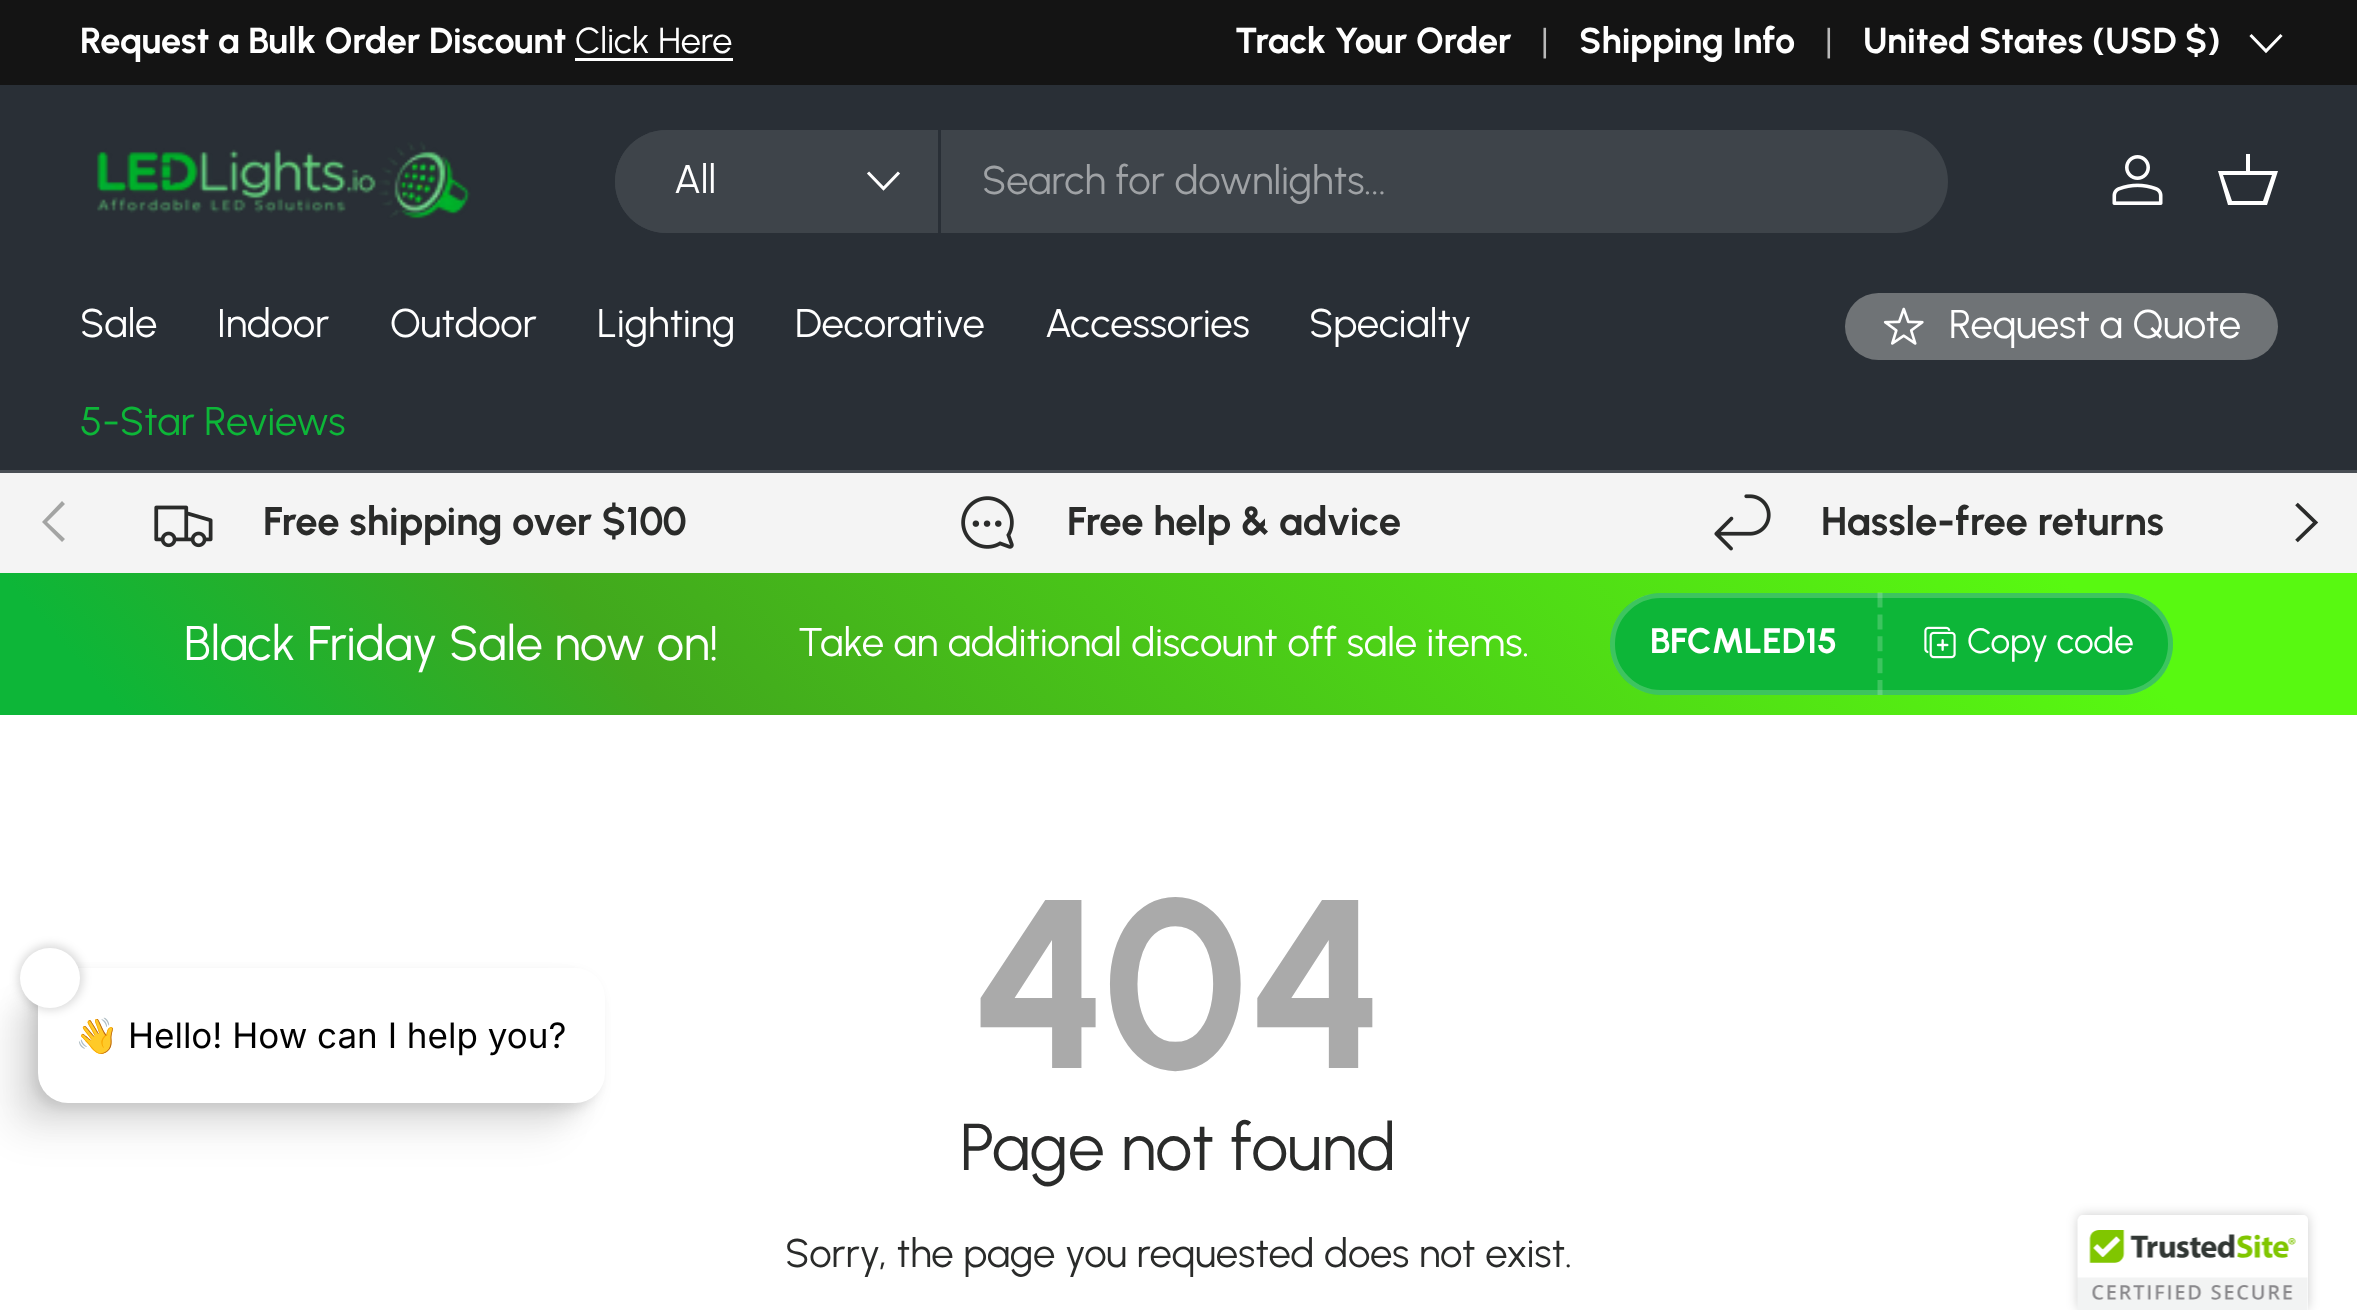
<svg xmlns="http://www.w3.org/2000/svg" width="2357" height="1310">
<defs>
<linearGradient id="g1" gradientUnits="userSpaceOnUse" x1="1010" y1="172" x2="2247" y2="481"><stop offset="0.6" stop-color="#8d9092"/><stop offset="0.6" stop-color="#6f7376"/><stop offset="1" stop-color="#6f7376"/></linearGradient>
<linearGradient id="g2" gradientUnits="userSpaceOnUse" x1="472" y1="1258" x2="1885" y2="29"><stop offset="0.05" stop-color="#0db638"/><stop offset="0.27" stop-color="#41a81d"/><stop offset="0.88" stop-color="#58f911"/></linearGradient>
</defs>
<rect width="100%" height="100%" fill="#fff"/>
<rect width="2357" height="85" fill="#141414"/>
<text x="80" y="53" style="font-family:Urbanist;font-size:36px;font-weight:bold;fill:#fff">Request a Bulk Order Discount</text>
<text x="575" y="53" style="font-family:Urbanist;font-size:36px;fill:#fff">Click Here</text>
<rect x="575" y="58" width="158" height="3" fill="#fff"/>
<text x="1235" y="53" style="font-family:Urbanist;font-size:36px;font-weight:bold;fill:#fff">Track Your Order</text>
<text x="1541" y="53" style="font-family:Urbanist;font-size:36px;fill:#b9b9b9">|</text>
<text x="1579" y="53" style="font-family:Urbanist;font-size:36px;font-weight:bold;fill:#fff">Shipping Info</text>
<text x="1825" y="53" style="font-family:Urbanist;font-size:36px;fill:#b9b9b9">|</text>
<text x="1863" y="53" style="font-family:Urbanist;font-size:36px;font-weight:bold;fill:#fff">United States (USD $)</text>
<path d="M2281.5 35l-15.5 16l-15.5-16" fill="none" stroke="#fff" stroke-width="3.1"/>
<rect y="85" width="2357" height="385" fill="#292f36"/>
<rect y="470" width="2357" height="3" fill="#494e54"/>
<image x="96" y="141" width="375" height="78" href="media/1.png"/>
<rect x="615" y="130" width="1333" height="103" rx="51.5" fill="#3e444a"/>
<path d="M666.5 130h273.5v103h-273.5c-28.5 0-51.5-23-51.5-51.5c0-28.5 23-51.5 51.5-51.5z" fill="#3e444a"/>
<rect x="938" y="130" width="3" height="103" fill="#292f36"/>
<text x="674" y="193" style="font-family:Urbanist;font-size:40px;fill:#fff">All</text>
<path d="M899 172.5l-15.5 16l-15.5-16" fill="none" stroke="#fff" stroke-width="3.1"/>
<text x="982" y="194" style="font-family:Urbanist;font-size:40px;fill:#9fa2a5">Search for downlights...</text>
<image x="2112" y="155" width="51" height="50" href="media/2.png"/>
<path d="M2246 171v-17h4v17h28l-11 34h-39l-10-34zm-23 4l9 26h31l9-26z" fill="#fff"/>
<text x="80" y="337" style="font-family:Urbanist;font-size:40px;fill:#fff">Sale</text>
<text x="217" y="337" style="font-family:Urbanist;font-size:40px;fill:#fff">Indoor</text>
<text x="390" y="337" style="font-family:Urbanist;font-size:40px;fill:#fff">Outdoor</text>
<text x="597" y="337" style="font-family:Urbanist;font-size:40px;fill:#fff">Lighting</text>
<text x="795" y="337" style="font-family:Urbanist;font-size:40px;fill:#fff">Decorative</text>
<text x="1045" y="337" style="font-family:Urbanist;font-size:40px;fill:#fff">Accessories</text>
<text x="1309" y="337" style="font-family:Urbanist;font-size:40px;fill:#fff">Specialty</text>
<text x="80" y="435" style="font-family:Urbanist;font-size:40px;fill:#0db638">5-Star Reviews</text>
<rect x="1845" y="293" width="433" height="67" rx="33.5" fill="url(#g1)"/>
<image x="1883" y="307" width="41" height="38" href="media/3.png"/>
<text x="1949" y="338" style="font-family:Urbanist;font-size:40px;fill:#fff">Request a Quote</text>
<rect y="473" width="2357" height="100" fill="#f4f4f4"/>
<path d="M42 522l20-21l3 3l-18 18l18 17l-3 3z" fill="#a3a4a3"/>
<path d="M2296.5 504l19 18.5l-19 18.5" fill="none" stroke="#2a2b2a" stroke-width="3.8"/>
<image x="154" y="505" width="59" height="43" href="media/4.png"/>
<text x="263" y="535" style="font-family:Urbanist;font-size:40px;font-weight:bold;fill:#2a2b2a">Free shipping over $100</text>
<image x="961" y="496" width="53" height="53" href="media/5.png"/>
<text x="1067" y="535" style="font-family:Urbanist;font-size:40px;font-weight:bold;fill:#2a2b2a">Free help &amp; advice</text>
<image x="1714" y="494" width="57" height="57" href="media/6.png"/>
<text x="1821" y="535" style="font-family:Urbanist;font-size:40px;font-weight:bold;fill:#2a2b2a">Hassle-free returns</text>
<rect y="573" width="2357" height="142" fill="url(#g2)"/>
<text x="184" y="660" style="font-family:Urbanist;font-size:48.5px;fill:#fff">Black Friday Sale now on!</text>
<text x="798" y="656" style="font-family:Urbanist;font-size:40px;fill:#fff">Take an additional discount off sale items.</text>
<rect x="1610" y="593" width="563" height="102" rx="51" fill="#0db638"/>
<rect x="1612.5" y="595.5" width="558" height="97" rx="48.5" fill="none" stroke="#ffffff33" stroke-width="5"/>
<text x="1650" y="653" style="font-family:Urbanist;font-size:35.25px;font-weight:bold;fill:#fff">BFCMLED15</text>
<path d="M1880 592.5v102.5" fill="none" stroke="#ffffff33" stroke-width="5" stroke-dasharray="15 6.88"/>
<image x="1924" y="626" width="32" height="33" href="media/7.png"/>
<text x="1967" y="653" style="font-family:Urbanist;font-size:35px;fill:#fff">Copy code</text>
<rect x="33" y="973" width="567" height="135" rx="30" fill="#0000001a" filter="blur(6px)"/>
<rect x="20" y="985" width="568" height="135" rx="30" fill="#00000017" filter="blur(12.5px)"/>
<rect y="1005" width="568" height="135" rx="30" fill="#0000000d" filter="blur(16px)"/>
<rect x="38" y="968" width="567" height="135" rx="30" fill="#fff"/>
<rect x="18" y="945" width="65" height="65" rx="32.5" fill="#00000026" filter="blur(5px)"/>
<circle cx="50" cy="978" r="30" fill="#fff"/>
<text x="75" y="1048" style="font-family:Noto Color Emoji;font-size:35px;fill:#000">👋</text>
<text x="128" y="1048" style="font-family:Inter;font-size:35px;fill:#000">Hello! How can I help you?</text>
<text x="971" y="1068" style="font-family:Urbanist;font-size:240px;font-weight:bold;fill:#aaa">404</text>
<text x="960" y="1170" style="font-family:Urbanist;font-size:66px;fill:#2a2b2a">Page not found</text>
<text x="785" y="1267" style="font-family:Urbanist;font-size:40px;fill:#2a2b2a">Sorry, the page you requested does not exist.</text>
<rect x="2078" y="1215" width="230" height="95" rx="5" fill="#00000033" filter="blur(6px)"/>
<path d="M2083 1215h220c3 0 5 2 5 5v90h-230v-90c0-3 2-5 5-5z" fill="#fff"/>
<image x="2077" y="1219" width="231" height="91" href="media/8.png"/>
</svg>
